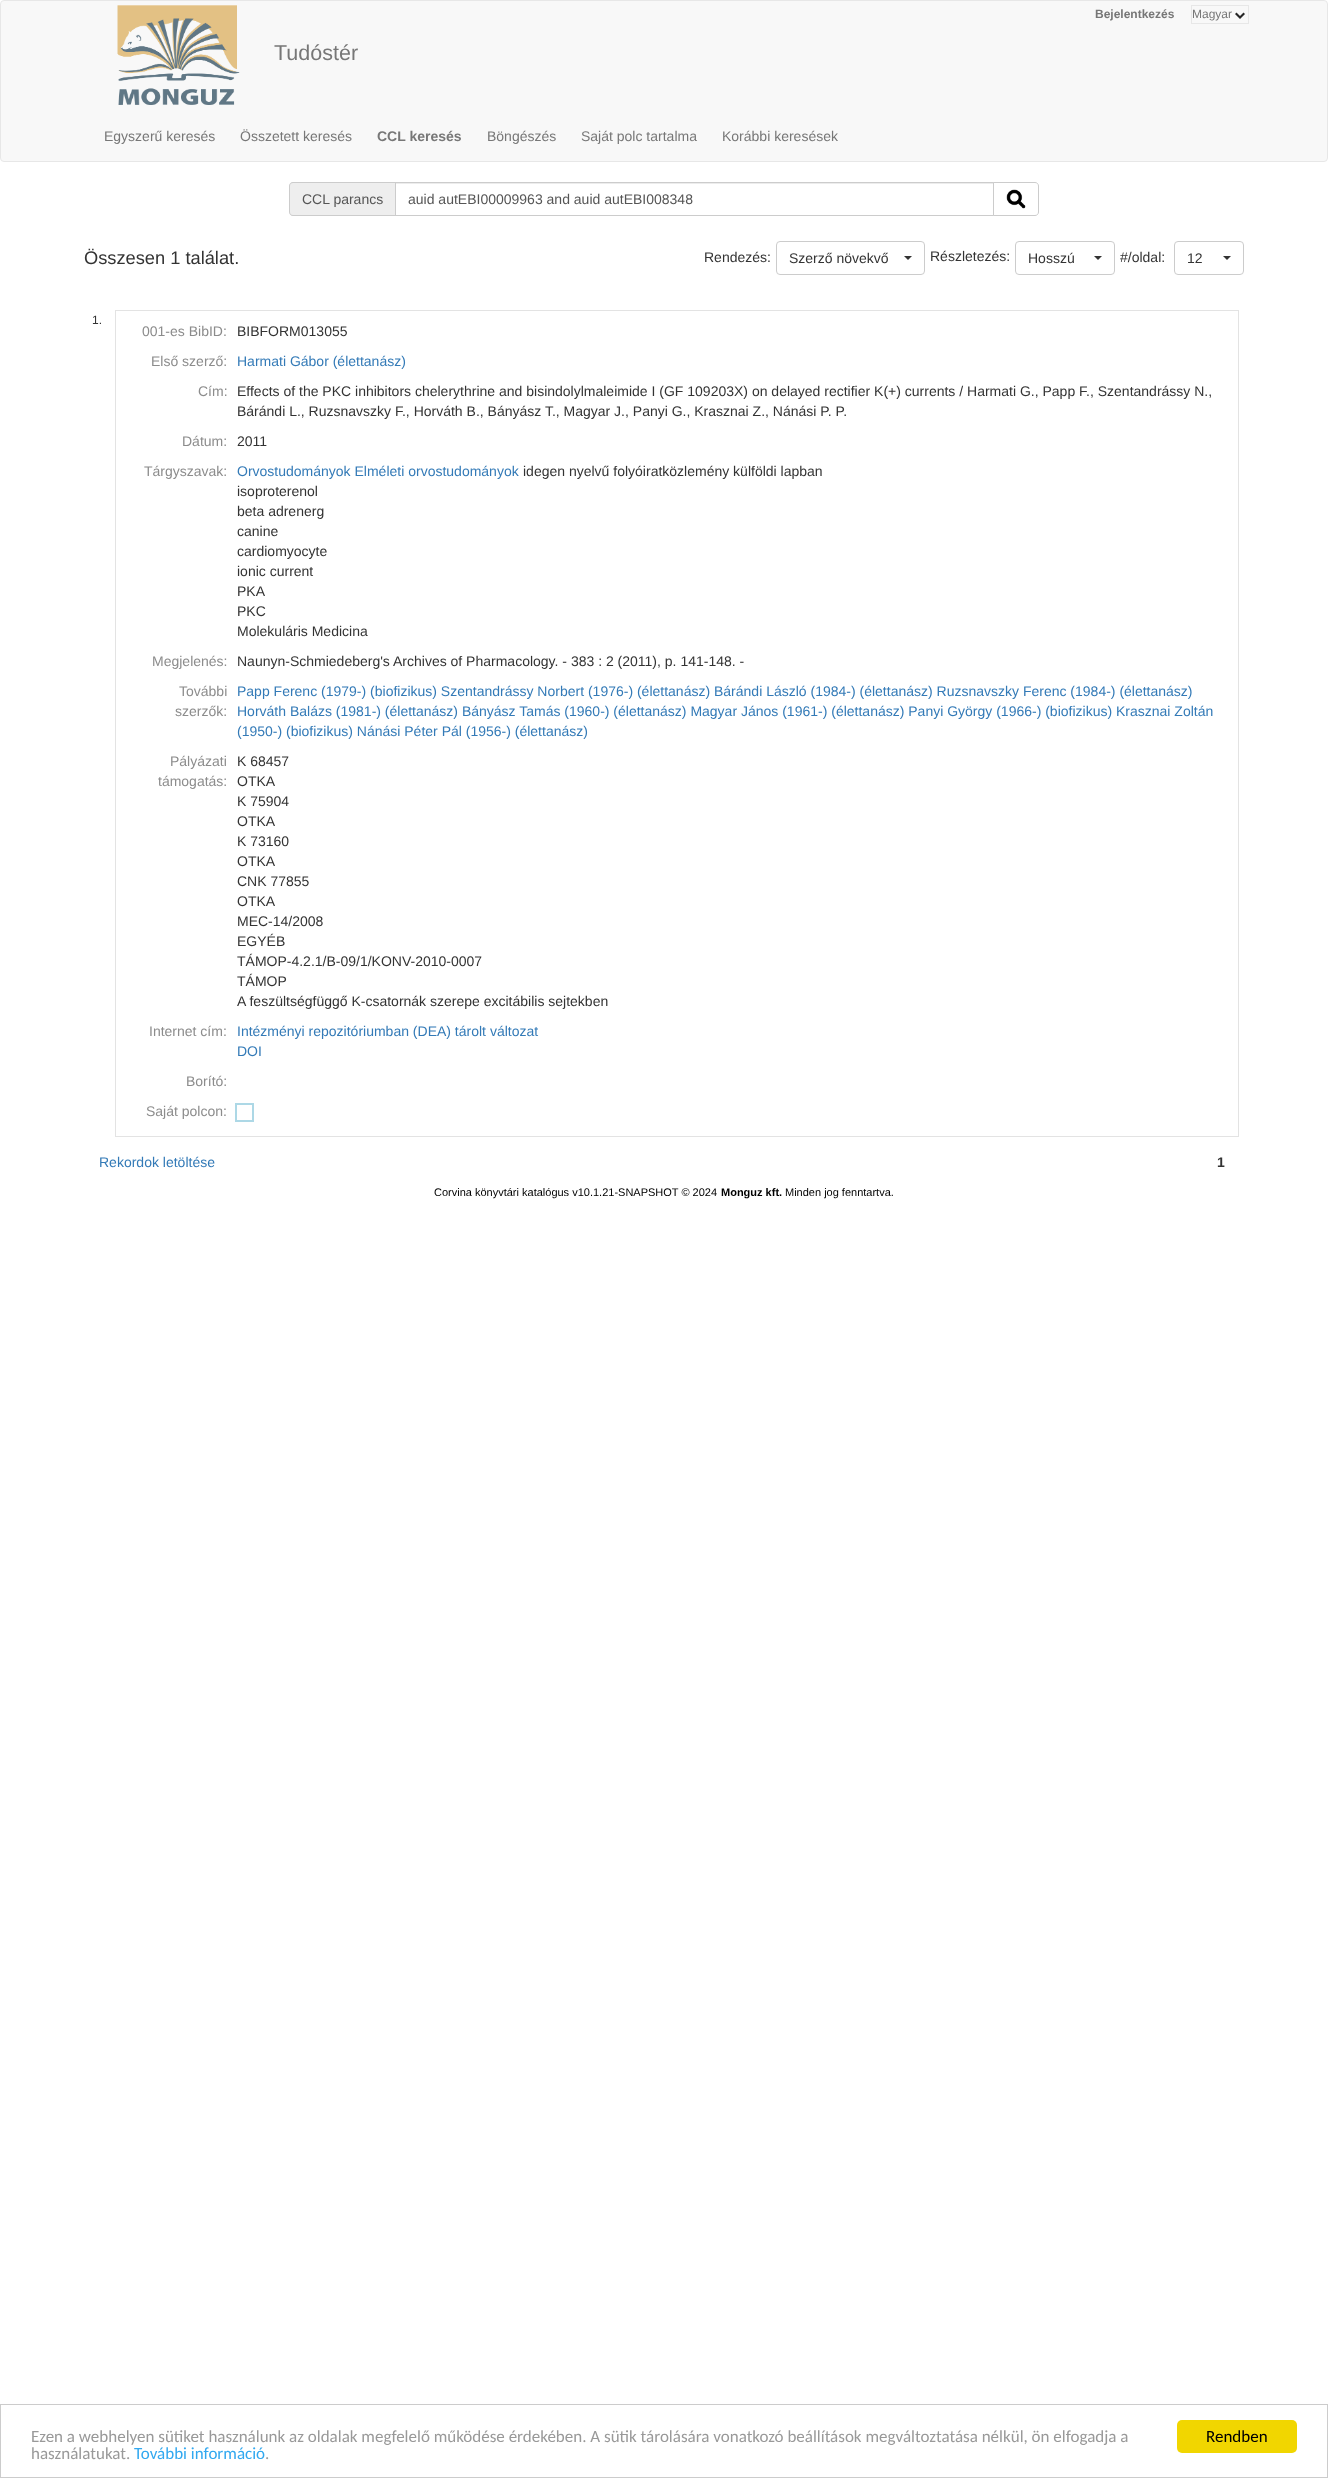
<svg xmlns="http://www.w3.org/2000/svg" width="1328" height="2478">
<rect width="100%" height="100%" fill="#fff"/>
<rect x="0.5" y="0.5" width="1327" height="161" rx="3.5" fill="#f8f8f8" stroke="#e7e7e7"/>
<text x="1095" y="18" style="font-family:Liberation Sans;font-size:12px;font-weight:bold;fill:#777">Bejelentkezés</text>
<image x="1235" y="12" width="10" height="7" href="media/1.png"/>
<rect x="1191.5" y="5.5" width="57" height="18" fill="none" stroke="#e7e7e7"/>
<text x="1192" y="18" style="font-family:Liberation Sans;font-size:12px;fill:#777">Magyar</text>
<image x="117" y="5" width="123" height="100" href="media/2.png"/>
<text x="274" y="60" style="font-family:Liberation Sans;font-size:21.5px;fill:#777">Tudóstér</text>
<text x="104" y="141" style="font-family:Liberation Sans;font-size:14px;fill:#777">Egyszerű keresés</text>
<text x="240" y="141" style="font-family:Liberation Sans;font-size:14px;fill:#777">Összetett keresés</text>
<text x="377" y="141" style="font-family:Liberation Sans;font-size:14px;font-weight:bold;fill:#777">CCL keresés</text>
<text x="487" y="141" style="font-family:Liberation Sans;font-size:14px;fill:#777">Böngészés</text>
<text x="581" y="141" style="font-family:Liberation Sans;font-size:14px;fill:#777">Saját polc tartalma</text>
<text x="722" y="141" style="font-family:Liberation Sans;font-size:14px;fill:#777">Korábbi keresések</text>
<path d="M293 182h102v34h-102c-2 0-4-2-4-4v-26c0-2 2-4 4-4z" fill="#eee"/>
<path d="M293 182h102v34h-102c-2 0-4-2-4-4v-26c0-2 2-4 4-4zm0 1h102v32h-102c-2 0-3-1-3-3v-26c0-2 1-3 3-3z" fill="#ccc" fill-rule="evenodd"/>
<text x="302" y="204" style="font-family:Liberation Sans;font-size:14px;fill:#555">CCL parancs</text>
<rect x="396" y="183" width="597" height="1" fill="#ececec"/>
<rect x="395.5" y="182.5" width="598" height="33" fill="none" stroke="#ccc"/>
<text x="408" y="204" style="font-family:Liberation Sans;font-size:14px;fill:#555">auid autEBI00009963 and auid autEBI008348</text>
<path d="M993.5 182.5h41.5c2 0 3.5 1.5 3.5 3.5v26c0 2-1.5 3.5-3.5 3.5h-41.5z" fill="#fff" stroke="#ccc"/>
<image x="1006" y="189" width="20" height="20" href="media/3.png"/>
<text x="84" y="264" style="font-family:Liberation Sans;font-size:18.25px;fill:#333">Összesen 1 találat.</text>
<text x="704" y="262" style="font-family:Liberation Sans;font-size:14px;fill:#333">Rendezés:</text>
<rect x="776.5" y="241.5" width="148" height="33" rx="3.5" fill="none" stroke="#ccc"/>
<text x="789" y="263" style="font-family:Liberation Sans;font-size:14px;fill:#333">Szerző növekvő</text>
<path d="M904 256h8l-4 4z" fill="#333"/>
<text x="930" y="261" style="font-family:Liberation Sans;font-size:14px;fill:#333">Részletezés:</text>
<rect x="1015.5" y="241.5" width="99" height="33" rx="3.5" fill="none" stroke="#ccc"/>
<text x="1028" y="263" style="font-family:Liberation Sans;font-size:14px;fill:#333">Hosszú</text>
<path d="M1094 256h8l-4 4z" fill="#333"/>
<text x="1120" y="262" style="font-family:Liberation Sans;font-size:14px;fill:#333">#/oldal:</text>
<rect x="1174.5" y="241.5" width="69" height="33" rx="3.5" fill="none" stroke="#ccc"/>
<text x="1187" y="263" style="font-family:Liberation Sans;font-size:14px;fill:#333">12</text>
<path d="M1223 256h8l-4 4z" fill="#333"/>
<text x="92" y="324" style="font-family:Liberation Sans;font-size:12px;fill:#333">1.</text>
<rect x="115" y="310" width="1124" height="1" fill="#e3e3e3"/>
<rect x="1238" y="310" width="1" height="827" fill="#e3e3e3"/>
<rect x="115" y="1136" width="1124" height="1" fill="#e3e3e3"/>
<rect x="115" y="310" width="1" height="827" fill="#e3e3e3"/>
<text x="142" y="336" style="font-family:Liberation Sans;font-size:14px;fill:#8c8c8c">001-es BibID:</text>
<text x="237" y="336" style="font-family:Liberation Sans;font-size:14px;fill:#333">BIBFORM013055</text>
<text x="151" y="366" style="font-family:Liberation Sans;font-size:14px;fill:#8c8c8c">Első szerző:</text>
<text x="237" y="366" style="font-family:Liberation Sans;font-size:14px;fill:#337ab7">Harmati Gábor (élettanász)</text>
<text x="198" y="396" style="font-family:Liberation Sans;font-size:14px;fill:#8c8c8c">Cím:</text>
<text x="237" y="396" style="font-family:Liberation Sans;font-size:14px;fill:#333">Effects of the PKC inhibitors chelerythrine and bisindolylmaleimide I (GF 109203X) on delayed rectifier K(+) currents / Harmati G., Papp F., Szentandrássy N.,</text>
<text x="237" y="416" style="font-family:Liberation Sans;font-size:14px;fill:#333">Bárándi L., Ruzsnavszky F., Horváth B., Bányász T., Magyar J., Panyi G., Krasznai Z., Nánási P. P.</text>
<text x="182" y="446" style="font-family:Liberation Sans;font-size:14px;fill:#8c8c8c">Dátum:</text>
<text x="237" y="446" style="font-family:Liberation Sans;font-size:14px;fill:#333">2011</text>
<text x="144" y="476" style="font-family:Liberation Sans;font-size:14px;fill:#8c8c8c">Tárgyszavak:</text>
<text x="237" y="476" style="font-family:Liberation Sans;font-size:14px;fill:#337ab7">Orvostudományok Elméleti orvostudományok</text>
<text x="523" y="476" style="font-family:Liberation Sans;font-size:14px;fill:#333">idegen nyelvű folyóiratközlemény külföldi lapban</text>
<text x="237" y="496" style="font-family:Liberation Sans;font-size:14px;fill:#333">isoproterenol</text>
<text x="237" y="516" style="font-family:Liberation Sans;font-size:14px;fill:#333">beta adrenerg</text>
<text x="237" y="536" style="font-family:Liberation Sans;font-size:14px;fill:#333">canine</text>
<text x="237" y="556" style="font-family:Liberation Sans;font-size:14px;fill:#333">cardiomyocyte</text>
<text x="237" y="576" style="font-family:Liberation Sans;font-size:14px;fill:#333">ionic current</text>
<text x="237" y="596" style="font-family:Liberation Sans;font-size:14px;fill:#333">PKA</text>
<text x="237" y="616" style="font-family:Liberation Sans;font-size:14px;fill:#333">PKC</text>
<text x="237" y="636" style="font-family:Liberation Sans;font-size:14px;fill:#333">Molekuláris Medicina</text>
<text x="152" y="666" style="font-family:Liberation Sans;font-size:14px;fill:#8c8c8c">Megjelenés:</text>
<text x="237" y="666" style="font-family:Liberation Sans;font-size:14px;fill:#333">Naunyn-Schmiedeberg's Archives of Pharmacology. - 383 : 2 (2011), p. 141-148. -</text>
<text x="179" y="696" style="font-family:Liberation Sans;font-size:14px;fill:#8c8c8c">További</text>
<text x="175" y="716" style="font-family:Liberation Sans;font-size:14px;fill:#8c8c8c">szerzők:</text>
<text x="237" y="696" style="font-family:Liberation Sans;font-size:14px;fill:#337ab7">Papp Ferenc (1979-) (biofizikus) Szentandrássy Norbert (1976-) (élettanász) Bárándi László (1984-) (élettanász) Ruzsnavszky Ferenc (1984-) (élettanász)</text>
<text x="237" y="716" style="font-family:Liberation Sans;font-size:14px;fill:#337ab7">Horváth Balázs (1981-) (élettanász) Bányász Tamás (1960-) (élettanász) Magyar János (1961-) (élettanász) Panyi György (1966-) (biofizikus) Krasznai Zoltán</text>
<text x="237" y="736" style="font-family:Liberation Sans;font-size:14px;fill:#337ab7">(1950-) (biofizikus) Nánási Péter Pál (1956-) (élettanász)</text>
<text x="170" y="766" style="font-family:Liberation Sans;font-size:14px;fill:#8c8c8c">Pályázati</text>
<text x="158" y="786" style="font-family:Liberation Sans;font-size:14px;fill:#8c8c8c">támogatás:</text>
<text x="237" y="766" style="font-family:Liberation Sans;font-size:14px;fill:#333">K 68457</text>
<text x="237" y="786" style="font-family:Liberation Sans;font-size:14px;fill:#333">OTKA</text>
<text x="237" y="806" style="font-family:Liberation Sans;font-size:14px;fill:#333">K 75904</text>
<text x="237" y="826" style="font-family:Liberation Sans;font-size:14px;fill:#333">OTKA</text>
<text x="237" y="846" style="font-family:Liberation Sans;font-size:14px;fill:#333">K 73160</text>
<text x="237" y="866" style="font-family:Liberation Sans;font-size:14px;fill:#333">OTKA</text>
<text x="237" y="886" style="font-family:Liberation Sans;font-size:14px;fill:#333">CNK 77855</text>
<text x="237" y="906" style="font-family:Liberation Sans;font-size:14px;fill:#333">OTKA</text>
<text x="237" y="926" style="font-family:Liberation Sans;font-size:14px;fill:#333">MEC-14/2008</text>
<text x="237" y="946" style="font-family:Liberation Sans;font-size:14px;fill:#333">EGYÉB</text>
<text x="237" y="966" style="font-family:Liberation Sans;font-size:14px;fill:#333">TÁMOP-4.2.1/B-09/1/KONV-2010-0007</text>
<text x="237" y="986" style="font-family:Liberation Sans;font-size:14px;fill:#333">TÁMOP</text>
<text x="237" y="1006" style="font-family:Liberation Sans;font-size:14px;fill:#333">A feszültségfüggő K-csatornák szerepe excitábilis sejtekben</text>
<text x="149" y="1036" style="font-family:Liberation Sans;font-size:14px;fill:#8c8c8c">Internet cím:</text>
<text x="237" y="1036" style="font-family:Liberation Sans;font-size:14px;fill:#337ab7">Intézményi repozitóriumban (DEA) tárolt változat</text>
<text x="237" y="1056" style="font-family:Liberation Sans;font-size:14px;fill:#337ab7">DOI</text>
<text x="186" y="1086" style="font-family:Liberation Sans;font-size:14px;fill:#8c8c8c">Borító:</text>
<text x="146" y="1116" style="font-family:Liberation Sans;font-size:14px;fill:#8c8c8c">Saját polcon:</text>
<rect x="236" y="1104" width="17" height="17" fill="none" stroke="#add8e6" stroke-width="2"/>
<text x="99" y="1167" style="font-family:Liberation Sans;font-size:14px;fill:#337ab7">Rekordok letöltése</text>
<text x="1217" y="1167" style="font-family:Liberation Sans;font-size:14px;font-weight:bold;fill:#333">1</text>
<text x="434" y="1196" style="font-family:Liberation Sans;font-size:11px;fill:#000">Corvina könyvtári katalógus v10.1.21-SNAPSHOT © 2024</text>
<text x="721" y="1196" style="font-family:Liberation Sans;font-size:11px;font-weight:bold;fill:#000">Monguz kft.</text>
<text x="785" y="1196" style="font-family:Liberation Sans;font-size:11px;fill:#000">Minden jog fenntartva.</text>
<rect x="0.5" y="2404.5" width="1327" height="73" fill="none" stroke="#ccc"/>
<text x="31" y="2442" style="font-family:Carlito;font-size:17px;fill:#999">Ezen a webhelyen sütiket használunk az oldalak megfelelő működése érdekében. A sütik tárolására vonatkozó beállítások megváltoztatása nélkül, ön elfogadja a</text>
<text x="31" y="2459" style="font-family:Carlito;font-size:17px;fill:#999">használatukat.</text>
<text x="134" y="2459" style="font-family:Carlito;font-size:17px;fill:#31a8f0">További információ</text>
<text x="265" y="2459" style="font-family:Carlito;font-size:17px;fill:#999">.</text>
<rect x="1177" y="2420" width="120" height="33" rx="5" fill="#f1d600"/>
<text x="1206" y="2442" style="font-family:Carlito;font-size:17px;fill:#000">Rendben</text>
</svg>
